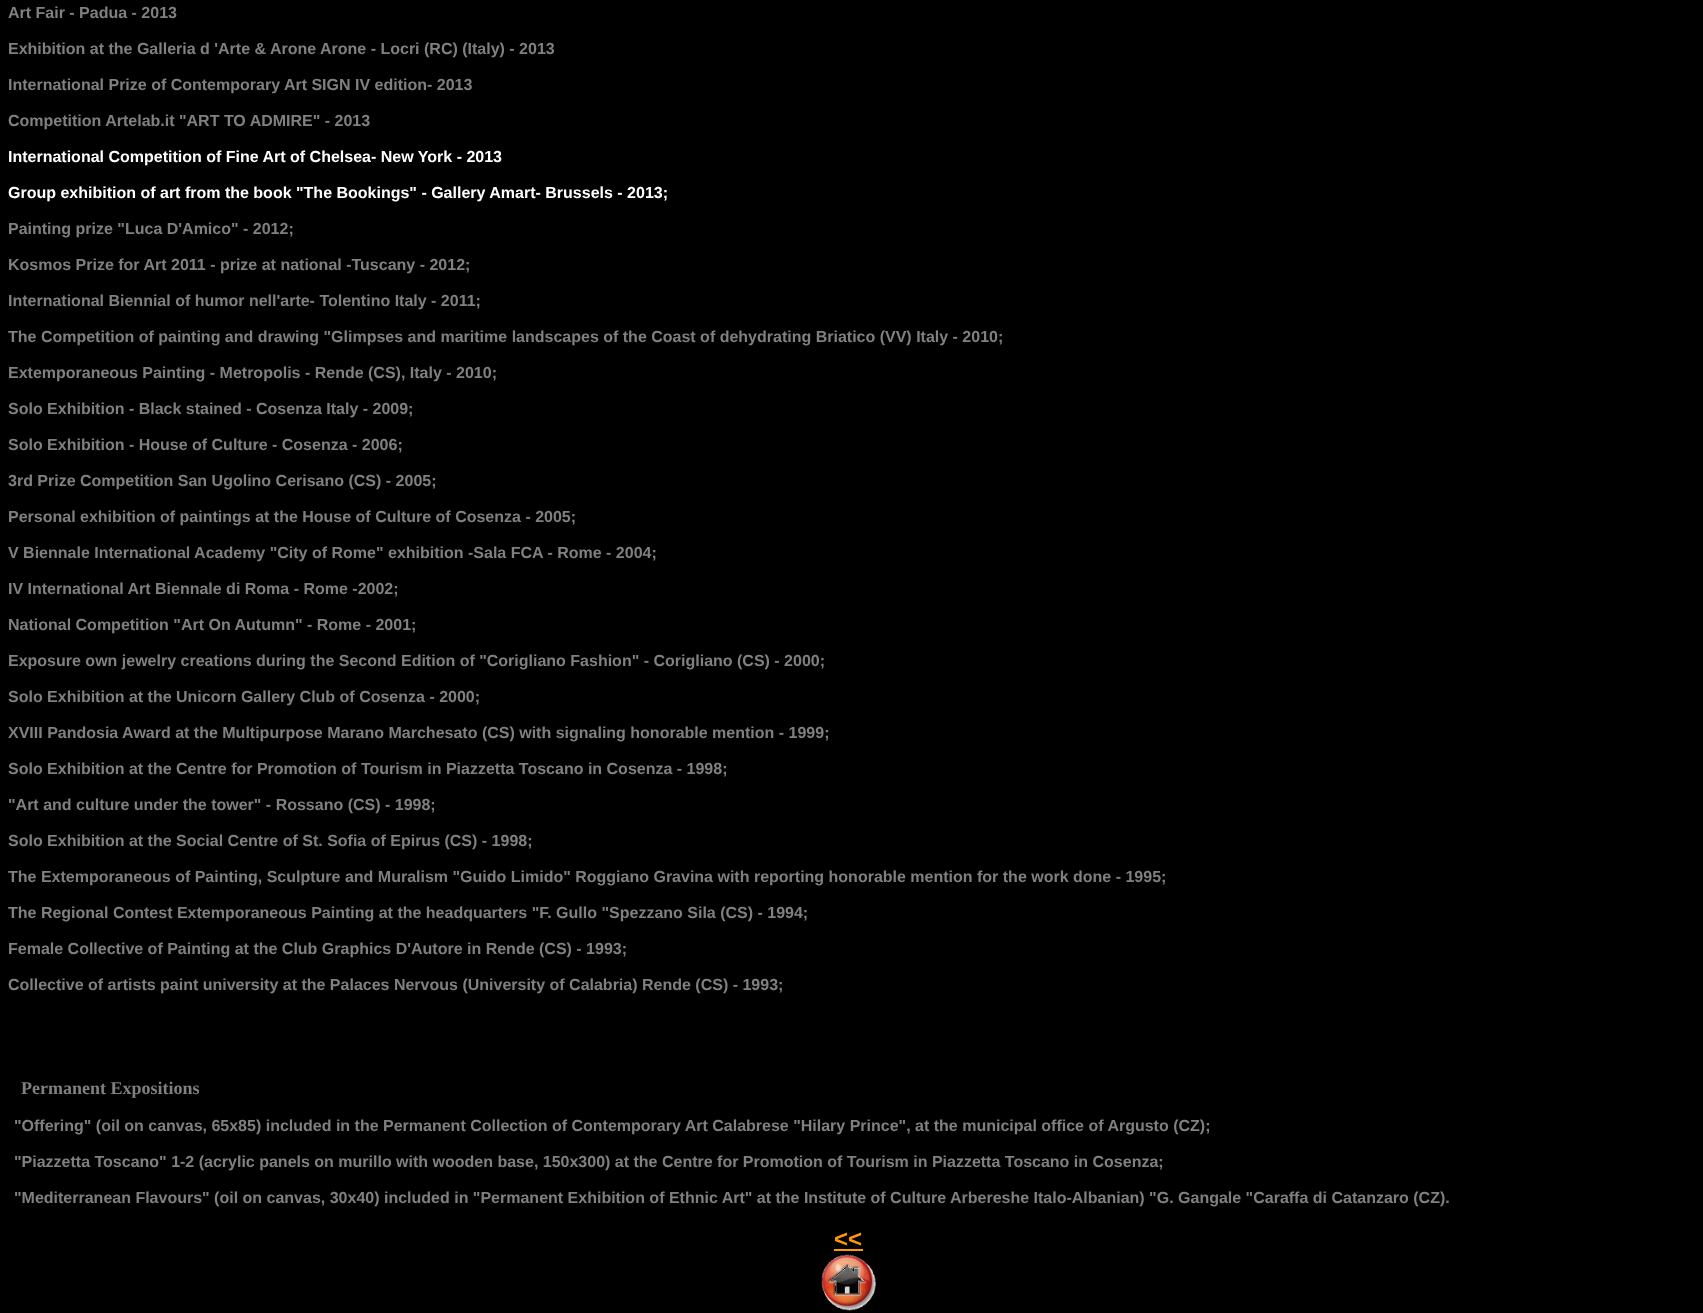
<svg xmlns="http://www.w3.org/2000/svg" width="1703" height="1313">
<rect width="100%" height="100%" fill="#000"/>
<text x="8" y="18" style="font-family:Liberation Sans;font-size:16px;font-weight:bold;fill:#808080">Art Fair - Padua - 2013</text>
<text x="8" y="54" style="font-family:Liberation Sans;font-size:16px;font-weight:bold;fill:#808080">Exhibition at the Galleria d 'Arte &amp; Arone Arone - Locri (RC) (Italy) - 2013</text>
<text x="8" y="90" style="font-family:Liberation Sans;font-size:16px;font-weight:bold;fill:#808080">International Prize of Contemporary Art SIGN IV edition- 2013</text>
<text x="8" y="126" style="font-family:Liberation Sans;font-size:16px;font-weight:bold;fill:#808080">Competition Artelab.it "ART TO ADMIRE" - 2013</text>
<text x="8" y="162" style="font-family:Liberation Sans;font-size:16px;font-weight:bold;fill:#fff">International Competition of Fine Art of Chelsea- New York - 2013</text>
<text x="8" y="198" style="font-family:Liberation Sans;font-size:16px;font-weight:bold;fill:#fff">Group exhibition of art from the book "The Bookings" - Gallery Amart- Brussels - 2013;</text>
<text x="8" y="234" style="font-family:Liberation Sans;font-size:16px;font-weight:bold;fill:#808080">Painting prize "Luca D'Amico" - 2012;</text>
<text x="8" y="270" style="font-family:Liberation Sans;font-size:16px;font-weight:bold;fill:#808080">Kosmos Prize for Art 2011 - prize at national -Tuscany - 2012;</text>
<text x="8" y="306" style="font-family:Liberation Sans;font-size:16px;font-weight:bold;fill:#808080">International Biennial of humor nell'arte- Tolentino Italy - 2011;</text>
<text x="8" y="342" style="font-family:Liberation Sans;font-size:16px;font-weight:bold;fill:#808080">The Competition of painting and drawing "Glimpses and maritime landscapes of the Coast of dehydrating Briatico (VV) Italy - 2010;</text>
<text x="8" y="378" style="font-family:Liberation Sans;font-size:16px;font-weight:bold;fill:#808080">Extemporaneous Painting - Metropolis - Rende (CS), Italy - 2010;</text>
<text x="8" y="414" style="font-family:Liberation Sans;font-size:16px;font-weight:bold;fill:#808080">Solo Exhibition - Black stained - Cosenza Italy - 2009;</text>
<text x="8" y="450" style="font-family:Liberation Sans;font-size:16px;font-weight:bold;fill:#808080">Solo Exhibition - House of Culture - Cosenza - 2006;</text>
<text x="8" y="486" style="font-family:Liberation Sans;font-size:16px;font-weight:bold;fill:#808080">3rd Prize Competition San Ugolino Cerisano (CS) - 2005;</text>
<text x="8" y="522" style="font-family:Liberation Sans;font-size:16px;font-weight:bold;fill:#808080">Personal exhibition of paintings at the House of Culture of Cosenza - 2005;</text>
<text x="8" y="558" style="font-family:Liberation Sans;font-size:16px;font-weight:bold;fill:#808080">V Biennale International Academy "City of Rome" exhibition -Sala FCA - Rome - 2004;</text>
<text x="8" y="594" style="font-family:Liberation Sans;font-size:16px;font-weight:bold;fill:#808080">IV International Art Biennale di Roma - Rome -2002;</text>
<text x="8" y="630" style="font-family:Liberation Sans;font-size:16px;font-weight:bold;fill:#808080">National Competition "Art On Autumn" - Rome - 2001;</text>
<text x="8" y="666" style="font-family:Liberation Sans;font-size:16px;font-weight:bold;fill:#808080">Exposure own jewelry creations during the Second Edition of "Corigliano Fashion" - Corigliano (CS) - 2000;</text>
<text x="8" y="702" style="font-family:Liberation Sans;font-size:16px;font-weight:bold;fill:#808080">Solo Exhibition at the Unicorn Gallery Club of Cosenza - 2000;</text>
<text x="8" y="738" style="font-family:Liberation Sans;font-size:16px;font-weight:bold;fill:#808080">XVIII Pandosia Award at the Multipurpose Marano Marchesato (CS) with signaling honorable mention - 1999;</text>
<text x="8" y="774" style="font-family:Liberation Sans;font-size:16px;font-weight:bold;fill:#808080">Solo Exhibition at the Centre for Promotion of Tourism in Piazzetta Toscano in Cosenza - 1998;</text>
<text x="8" y="810" style="font-family:Liberation Sans;font-size:16px;font-weight:bold;fill:#808080">"Art and culture under the tower" - Rossano (CS) - 1998;</text>
<text x="8" y="846" style="font-family:Liberation Sans;font-size:16px;font-weight:bold;fill:#808080">Solo Exhibition at the Social Centre of St. Sofia of Epirus (CS) - 1998;</text>
<text x="8" y="882" style="font-family:Liberation Sans;font-size:16px;font-weight:bold;fill:#808080">The Extemporaneous of Painting, Sculpture and Muralism "Guido Limido" Roggiano Gravina with reporting honorable mention for the work done - 1995;</text>
<text x="8" y="918" style="font-family:Liberation Sans;font-size:16px;font-weight:bold;fill:#808080">The Regional Contest Extemporaneous Painting at the headquarters "F. Gullo "Spezzano Sila (CS) - 1994;</text>
<text x="8" y="954" style="font-family:Liberation Sans;font-size:16px;font-weight:bold;fill:#808080">Female Collective of Painting at the Club Graphics D'Autore in Rende (CS) - 1993;</text>
<text x="8" y="990" style="font-family:Liberation Sans;font-size:16px;font-weight:bold;fill:#808080">Collective of artists paint university at the Palaces Nervous (University of Calabria) Rende (CS) - 1993;</text>
<text x="21" y="1094" style="font-family:Liberation Serif;font-size:18px;font-weight:bold;fill:#808080">Permanent Expositions</text>
<text x="14" y="1131" style="font-family:Liberation Sans;font-size:16px;font-weight:bold;fill:#808080">"Offering" (oil on canvas, 65x85) included in the Permanent Collection of Contemporary Art Calabrese "Hilary Prince", at the municipal office of Argusto (CZ);</text>
<text x="14" y="1167" style="font-family:Liberation Sans;font-size:16px;font-weight:bold;fill:#808080">"Piazzetta Toscano" 1-2 (acrylic panels on murillo with wooden base, 150x300) at the Centre for Promotion of Tourism in Piazzetta Toscano in Cosenza;</text>
<text x="14" y="1203" style="font-family:Liberation Sans;font-size:16px;font-weight:bold;fill:#808080">"Mediterranean Flavours" (oil on canvas, 30x40) included in "Permanent Exhibition of Ethnic Art" at the Institute of Culture Arbereshe Italo-Albanian) "G. Gangale "Caraffa di Catanzaro (CZ).</text>
<text x="834" y="1247" style="font-family:Liberation Sans;font-size:24px;font-weight:bold;fill:#f90">&lt;&lt;</text>
<rect x="834" y="1249" width="29" height="2" fill="#f90"/>
<image x="821" y="1254" width="55" height="57" href="media/1.png"/>
</svg>
